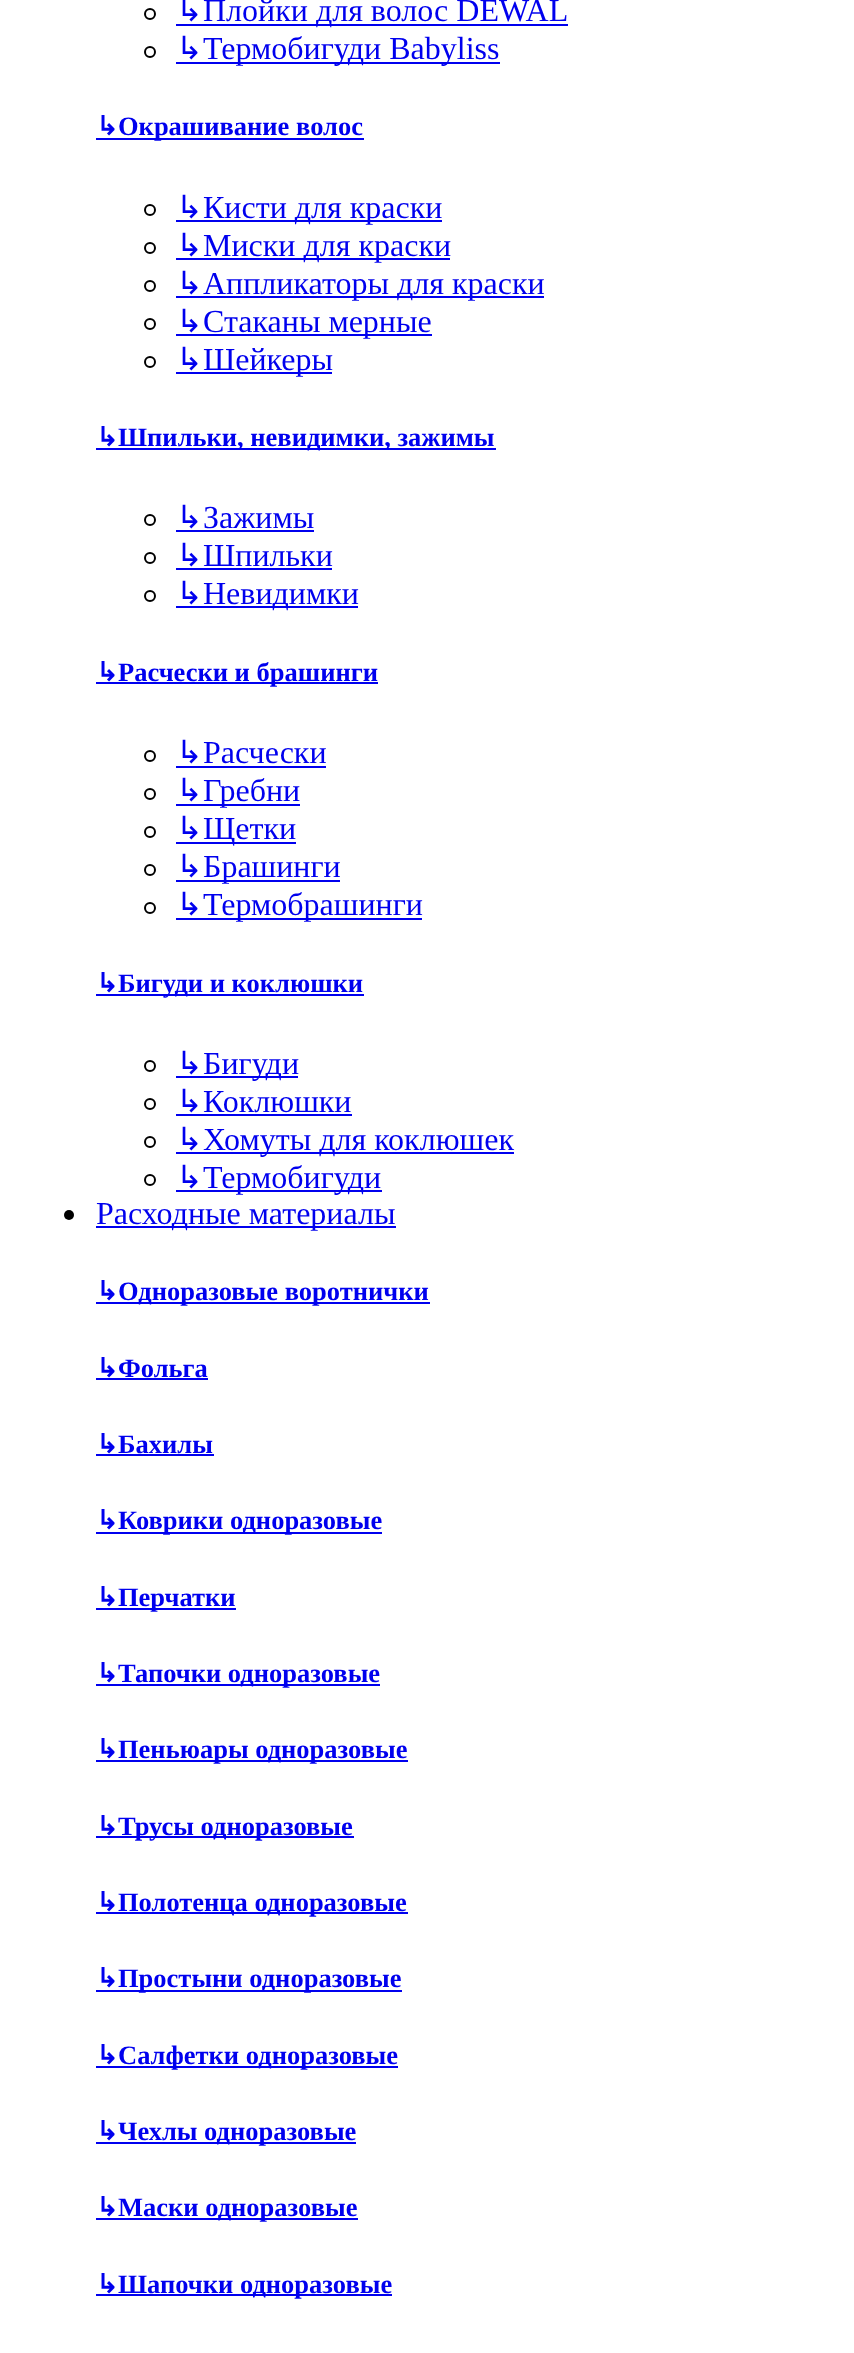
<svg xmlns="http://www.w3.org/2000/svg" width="854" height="2353">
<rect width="100%" height="100%" fill="#fff"/>
<circle cx="150" cy="14" r="5" fill="none" stroke="#000" stroke-width="2"/>
<text x="176" y="21" style="font-family:DejaVu Sans;font-size:32px;fill:#00e">↳</text>
<rect x="176" y="24" width="392" height="2" fill="#00e"/>
<text x="203" y="21" style="font-family:Liberation Serif;font-size:32px;fill:#00e">Плойки для волос DEWAL</text>
<circle cx="150" cy="52" r="5" fill="none" stroke="#000" stroke-width="2"/>
<text x="176" y="59" style="font-family:DejaVu Sans;font-size:32px;fill:#00e">↳</text>
<rect x="176" y="62" width="324" height="2" fill="#00e"/>
<text x="203" y="59" style="font-family:Liberation Serif;font-size:32px;fill:#00e">Термобигуди Babyliss</text>
<text x="96" y="135" style="font-family:DejaVu Sans;font-size:26.5px;font-weight:bold;fill:#00e">↳</text>
<rect x="96" y="138" width="268" height="2" fill="#00e"/>
<text x="118" y="135" style="font-family:Liberation Serif;font-size:26.5px;font-weight:bold;fill:#00e">Окрашивание волос</text>
<circle cx="150" cy="210" r="5" fill="none" stroke="#000" stroke-width="2"/>
<text x="176" y="218" style="font-family:DejaVu Sans;font-size:32px;fill:#00e">↳</text>
<rect x="176" y="220" width="266" height="2" fill="#00e"/>
<text x="203" y="218" style="font-family:Liberation Serif;font-size:32px;fill:#00e">Кисти для краски</text>
<circle cx="150" cy="248" r="5" fill="none" stroke="#000" stroke-width="2"/>
<text x="176" y="256" style="font-family:DejaVu Sans;font-size:32px;fill:#00e">↳</text>
<rect x="176" y="258" width="274" height="2" fill="#00e"/>
<text x="203" y="256" style="font-family:Liberation Serif;font-size:32px;fill:#00e">Миски для краски</text>
<circle cx="150" cy="286" r="5" fill="none" stroke="#000" stroke-width="2"/>
<text x="176" y="294" style="font-family:DejaVu Sans;font-size:32px;fill:#00e">↳</text>
<rect x="176" y="296" width="368" height="2" fill="#00e"/>
<text x="203" y="294" style="font-family:Liberation Serif;font-size:32px;fill:#00e">Аппликаторы для краски</text>
<circle cx="150" cy="324" r="5" fill="none" stroke="#000" stroke-width="2"/>
<text x="176" y="332" style="font-family:DejaVu Sans;font-size:32px;fill:#00e">↳</text>
<rect x="176" y="334" width="256" height="2" fill="#00e"/>
<text x="203" y="332" style="font-family:Liberation Serif;font-size:32px;fill:#00e">Стаканы мерные</text>
<circle cx="150" cy="362" r="5" fill="none" stroke="#000" stroke-width="2"/>
<text x="176" y="370" style="font-family:DejaVu Sans;font-size:32px;fill:#00e">↳</text>
<rect x="176" y="372" width="156" height="2" fill="#00e"/>
<text x="203" y="370" style="font-family:Liberation Serif;font-size:32px;fill:#00e">Шейкеры</text>
<text x="96" y="446" style="font-family:DejaVu Sans;font-size:26.5px;font-weight:bold;fill:#00e">↳</text>
<rect x="96" y="448" width="400" height="2" fill="#00e"/>
<text x="118" y="446" style="font-family:Liberation Serif;font-size:26.5px;font-weight:bold;fill:#00e">Шпильки, невидимки, зажимы</text>
<circle cx="150" cy="520" r="5" fill="none" stroke="#000" stroke-width="2"/>
<text x="176" y="528" style="font-family:DejaVu Sans;font-size:32px;fill:#00e">↳</text>
<text x="203" y="528" style="font-family:Liberation Serif;font-size:32px;fill:#00e">Зажимы</text>
<rect x="176" y="530" width="138" height="2" fill="#00e"/>
<circle cx="150" cy="558" r="5" fill="none" stroke="#000" stroke-width="2"/>
<text x="176" y="566" style="font-family:DejaVu Sans;font-size:32px;fill:#00e">↳</text>
<text x="203" y="566" style="font-family:Liberation Serif;font-size:32px;fill:#00e">Шпильки</text>
<rect x="176" y="568" width="156" height="2" fill="#00e"/>
<circle cx="150" cy="596" r="5" fill="none" stroke="#000" stroke-width="2"/>
<text x="176" y="604" style="font-family:DejaVu Sans;font-size:32px;fill:#00e">↳</text>
<rect x="176" y="606" width="182" height="2" fill="#00e"/>
<text x="203" y="604" style="font-family:Liberation Serif;font-size:32px;fill:#00e">Невидимки</text>
<text x="96" y="681" style="font-family:DejaVu Sans;font-size:26.5px;font-weight:bold;fill:#00e">↳</text>
<rect x="96" y="682" width="282" height="2" fill="#00e"/>
<text x="118" y="681" style="font-family:Liberation Serif;font-size:26.5px;font-weight:bold;fill:#00e">Расчески и брашинги</text>
<circle cx="150" cy="756" r="5" fill="none" stroke="#000" stroke-width="2"/>
<text x="176" y="763" style="font-family:DejaVu Sans;font-size:32px;fill:#00e">↳</text>
<text x="203" y="763" style="font-family:Liberation Serif;font-size:32px;fill:#00e">Расчески</text>
<rect x="176" y="766" width="150" height="2" fill="#00e"/>
<circle cx="150" cy="794" r="5" fill="none" stroke="#000" stroke-width="2"/>
<text x="176" y="801" style="font-family:DejaVu Sans;font-size:32px;fill:#00e">↳</text>
<rect x="176" y="804" width="124" height="2" fill="#00e"/>
<text x="203" y="801" style="font-family:Liberation Serif;font-size:32px;fill:#00e">Гребни</text>
<circle cx="150" cy="832" r="5" fill="none" stroke="#000" stroke-width="2"/>
<text x="176" y="839" style="font-family:DejaVu Sans;font-size:32px;fill:#00e">↳</text>
<rect x="176" y="842" width="120" height="2" fill="#00e"/>
<text x="203" y="839" style="font-family:Liberation Serif;font-size:32px;fill:#00e">Щетки</text>
<circle cx="150" cy="870" r="5" fill="none" stroke="#000" stroke-width="2"/>
<text x="176" y="877" style="font-family:DejaVu Sans;font-size:32px;fill:#00e">↳</text>
<rect x="176" y="880" width="164" height="2" fill="#00e"/>
<text x="203" y="877" style="font-family:Liberation Serif;font-size:32px;fill:#00e">Брашинги</text>
<circle cx="150" cy="908" r="5" fill="none" stroke="#000" stroke-width="2"/>
<text x="176" y="915" style="font-family:DejaVu Sans;font-size:32px;fill:#00e">↳</text>
<rect x="176" y="918" width="246" height="2" fill="#00e"/>
<text x="203" y="915" style="font-family:Liberation Serif;font-size:32px;fill:#00e">Термобрашинги</text>
<text x="96" y="992" style="font-family:DejaVu Sans;font-size:26.5px;font-weight:bold;fill:#00e">↳</text>
<rect x="96" y="994" width="268" height="2" fill="#00e"/>
<text x="118" y="992" style="font-family:Liberation Serif;font-size:26.5px;font-weight:bold;fill:#00e">Бигуди и коклюшки</text>
<circle cx="150" cy="1066" r="5" fill="none" stroke="#000" stroke-width="2"/>
<text x="176" y="1074" style="font-family:DejaVu Sans;font-size:32px;fill:#00e">↳</text>
<rect x="176" y="1076" width="122" height="2" fill="#00e"/>
<text x="203" y="1074" style="font-family:Liberation Serif;font-size:32px;fill:#00e">Бигуди</text>
<circle cx="150" cy="1104" r="5" fill="none" stroke="#000" stroke-width="2"/>
<text x="176" y="1112" style="font-family:DejaVu Sans;font-size:32px;fill:#00e">↳</text>
<text x="203" y="1112" style="font-family:Liberation Serif;font-size:32px;fill:#00e">Коклюшки</text>
<rect x="176" y="1114" width="176" height="2" fill="#00e"/>
<circle cx="150" cy="1142" r="5" fill="none" stroke="#000" stroke-width="2"/>
<text x="176" y="1150" style="font-family:DejaVu Sans;font-size:32px;fill:#00e">↳</text>
<rect x="176" y="1152" width="338" height="2" fill="#00e"/>
<text x="203" y="1150" style="font-family:Liberation Serif;font-size:32px;fill:#00e">Хомуты для коклюшек</text>
<circle cx="150" cy="1180" r="5" fill="none" stroke="#000" stroke-width="2"/>
<text x="176" y="1188" style="font-family:DejaVu Sans;font-size:32px;fill:#00e">↳</text>
<rect x="176" y="1190" width="206" height="2" fill="#00e"/>
<text x="203" y="1188" style="font-family:Liberation Serif;font-size:32px;fill:#00e">Термобигуди</text>
<circle cx="69" cy="1215" r="5" fill="#000"/>
<rect x="96" y="1226" width="300" height="2" fill="#00e"/>
<text x="96" y="1224" style="font-family:Liberation Serif;font-size:32px;fill:#00e">Расходные материалы</text>
<text x="96" y="1300" style="font-family:DejaVu Sans;font-size:26.5px;font-weight:bold;fill:#00e">↳</text>
<rect x="96" y="1302" width="334" height="2" fill="#00e"/>
<text x="118" y="1300" style="font-family:Liberation Serif;font-size:26.5px;font-weight:bold;fill:#00e">Одноразовые воротнички</text>
<text x="96" y="1377" style="font-family:DejaVu Sans;font-size:26.5px;font-weight:bold;fill:#00e">↳</text>
<text x="118" y="1377" style="font-family:Liberation Serif;font-size:26.5px;font-weight:bold;fill:#00e">Фольга</text>
<rect x="96" y="1378" width="112" height="2" fill="#00e"/>
<text x="96" y="1453" style="font-family:DejaVu Sans;font-size:26.5px;font-weight:bold;fill:#00e">↳</text>
<text x="118" y="1453" style="font-family:Liberation Serif;font-size:26.5px;font-weight:bold;fill:#00e">Бахилы</text>
<rect x="96" y="1454" width="118" height="2" fill="#00e"/>
<text x="96" y="1529" style="font-family:DejaVu Sans;font-size:26.5px;font-weight:bold;fill:#00e">↳</text>
<rect x="96" y="1532" width="286" height="2" fill="#00e"/>
<text x="118" y="1529" style="font-family:Liberation Serif;font-size:26.5px;font-weight:bold;fill:#00e">Коврики одноразовые</text>
<text x="96" y="1606" style="font-family:DejaVu Sans;font-size:26.5px;font-weight:bold;fill:#00e">↳</text>
<rect x="96" y="1608" width="140" height="2" fill="#00e"/>
<text x="118" y="1606" style="font-family:Liberation Serif;font-size:26.5px;font-weight:bold;fill:#00e">Перчатки</text>
<text x="96" y="1682" style="font-family:DejaVu Sans;font-size:26.5px;font-weight:bold;fill:#00e">↳</text>
<rect x="96" y="1684" width="284" height="2" fill="#00e"/>
<text x="118" y="1682" style="font-family:Liberation Serif;font-size:26.5px;font-weight:bold;fill:#00e">Тапочки одноразовые</text>
<text x="96" y="1758" style="font-family:DejaVu Sans;font-size:26.5px;font-weight:bold;fill:#00e">↳</text>
<rect x="96" y="1760" width="312" height="2" fill="#00e"/>
<text x="118" y="1758" style="font-family:Liberation Serif;font-size:26.5px;font-weight:bold;fill:#00e">Пеньюары одноразовые</text>
<text x="96" y="1835" style="font-family:DejaVu Sans;font-size:26.5px;font-weight:bold;fill:#00e">↳</text>
<rect x="96" y="1836" width="258" height="2" fill="#00e"/>
<text x="118" y="1835" style="font-family:Liberation Serif;font-size:26.5px;font-weight:bold;fill:#00e">Трусы одноразовые</text>
<text x="96" y="1911" style="font-family:DejaVu Sans;font-size:26.5px;font-weight:bold;fill:#00e">↳</text>
<rect x="96" y="1912" width="312" height="2" fill="#00e"/>
<text x="118" y="1911" style="font-family:Liberation Serif;font-size:26.5px;font-weight:bold;fill:#00e">Полотенца одноразовые</text>
<text x="96" y="1987" style="font-family:DejaVu Sans;font-size:26.5px;font-weight:bold;fill:#00e">↳</text>
<rect x="96" y="1990" width="306" height="2" fill="#00e"/>
<text x="118" y="1987" style="font-family:Liberation Serif;font-size:26.5px;font-weight:bold;fill:#00e">Простыни одноразовые</text>
<text x="96" y="2064" style="font-family:DejaVu Sans;font-size:26.5px;font-weight:bold;fill:#00e">↳</text>
<rect x="96" y="2066" width="302" height="2" fill="#00e"/>
<text x="118" y="2064" style="font-family:Liberation Serif;font-size:26.5px;font-weight:bold;fill:#00e">Салфетки одноразовые</text>
<text x="96" y="2140" style="font-family:DejaVu Sans;font-size:26.5px;font-weight:bold;fill:#00e">↳</text>
<rect x="96" y="2142" width="260" height="2" fill="#00e"/>
<text x="118" y="2140" style="font-family:Liberation Serif;font-size:26.5px;font-weight:bold;fill:#00e">Чехлы одноразовые</text>
<text x="96" y="2216" style="font-family:DejaVu Sans;font-size:26.5px;font-weight:bold;fill:#00e">↳</text>
<rect x="96" y="2218" width="262" height="2" fill="#00e"/>
<text x="118" y="2216" style="font-family:Liberation Serif;font-size:26.5px;font-weight:bold;fill:#00e">Маски одноразовые</text>
<text x="96" y="2293" style="font-family:DejaVu Sans;font-size:26.5px;font-weight:bold;fill:#00e">↳</text>
<rect x="96" y="2294" width="296" height="2" fill="#00e"/>
<text x="118" y="2293" style="font-family:Liberation Serif;font-size:26.5px;font-weight:bold;fill:#00e">Шапочки одноразовые</text>
</svg>
